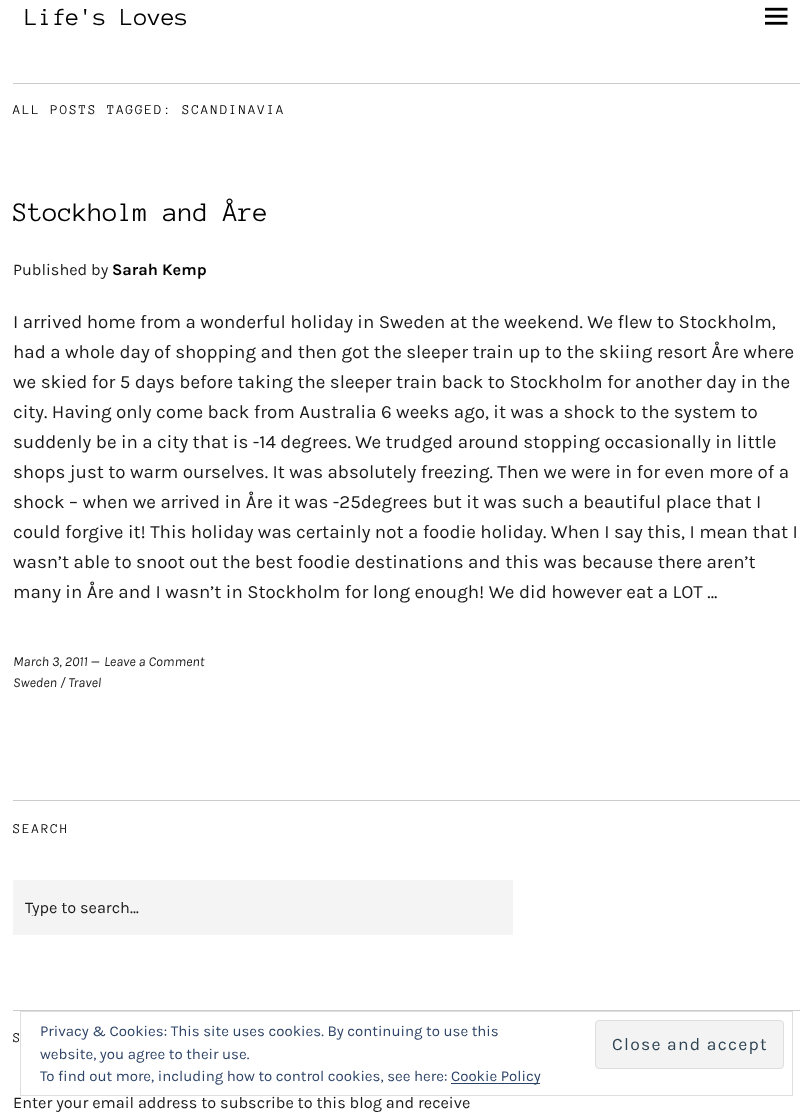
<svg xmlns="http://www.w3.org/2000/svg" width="812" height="1116">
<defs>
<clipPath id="clip1"><rect x="13" y="170" width="787" height="630"/></clipPath>
<clipPath id="clip2"><rect x="13" y="801" width="787" height="209"/></clipPath>
<clipPath id="clip3"><rect x="25" y="898" width="475" height="18"/></clipPath>
<clipPath id="clip4"><rect x="13" y="1011" width="787" height="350"/></clipPath>
</defs>
<rect width="100%" height="100%" fill="#fff"/>
<text x="25" y="25" style="font-family:Anonymous Pro;font-size:25px;fill:#000">Life's Loves</text>
<image x="765" y="7" width="23" height="18" href="media/1.png"/>
<rect x="13" y="83" width="787" height="1" fill="#ccc"/>
<text x="13" y="114" style="font-family:Anonymous Pro;font-size:13.75px;letter-spacing:1.9px;fill:#000">ALL POSTS TAGGED: SCANDINAVIA</text>
<g clip-path="url(#clip1)">
<text x="13" y="221" style="font-family:Anonymous Pro;font-size:27.5px;fill:#000">Stockholm and Åre</text>
</g>
<text x="13" y="275" style="font-family:Karla;font-size:16.25px;fill:#191919">Published by</text>
<text x="112" y="275" style="font-family:Karla;font-size:16.25px;font-weight:bold;fill:#000">Sarah Kemp</text>
<text x="13" y="328" style="font-family:Karla;font-size:18.75px;fill:#191919">I arrived home from a wonderful holiday in Sweden at the weekend. We flew to Stockholm,</text>
<text x="13" y="358" style="font-family:Karla;font-size:18.75px;fill:#191919">had a whole day of shopping and then got the sleeper train up to the skiing resort Åre where</text>
<text x="13" y="388" style="font-family:Karla;font-size:18.75px;fill:#191919">we skied for 5 days before taking the sleeper train back to Stockholm for another day in the</text>
<text x="13" y="418" style="font-family:Karla;font-size:18.75px;fill:#191919">city. Having only come back from Australia 6 weeks ago, it was a shock to the system to</text>
<text x="13" y="448" style="font-family:Karla;font-size:18.75px;fill:#191919">suddenly be in a city that is -14 degrees. We trudged around stopping occasionally in little</text>
<text x="13" y="478" style="font-family:Karla;font-size:18.75px;fill:#191919">shops just to warm ourselves. It was absolutely freezing. Then we were in for even more of a</text>
<text x="13" y="508" style="font-family:Karla;font-size:18.75px;fill:#191919">shock – when we arrived in Åre it was -25degrees but it was such a beautiful place that I</text>
<text x="13" y="538" style="font-family:Karla;font-size:18.75px;fill:#191919">could forgive it! This holiday was certainly not a foodie holiday. When I say this, I mean that I</text>
<text x="13" y="568" style="font-family:Karla;font-size:18.75px;fill:#191919">wasn’t able to snoot out the best foodie destinations and this was because there aren’t</text>
<text x="13" y="598" style="font-family:Karla;font-size:18.75px;fill:#191919">many in Åre and I wasn’t in Stockholm for long enough! We did however eat a LOT …</text>
<text x="13" y="666" style="font-family:Karla;font-size:13.75px;font-style:italic;fill:#191919">March 3, 2011 —</text>
<text x="104" y="666" style="font-family:Karla;font-size:13.75px;font-style:italic;fill:#191919">Leave a Comment</text>
<text x="13" y="687" style="font-family:Karla;font-size:13.75px;font-style:italic;fill:#191919">Sweden / Travel</text>
<rect x="13" y="800" width="787" height="1" fill="#ccc"/>
<rect x="13" y="1010" width="787" height="1" fill="#ccc"/>
<g clip-path="url(#clip2)">
<text x="13" y="833" style="font-family:Anonymous Pro;font-size:13.75px;letter-spacing:1.9px;fill:#000">SEARCH</text>
</g>
<rect x="13" y="880" width="500" height="55" fill="#f4f4f4"/>
<g clip-path="url(#clip3)">
<text x="25" y="913" style="font-family:Karla;font-size:16.25px;fill:#191919">Type to search…</text>
</g>
<g clip-path="url(#clip4)">
<text x="13" y="1042" style="font-family:Anonymous Pro;font-size:13.75px;letter-spacing:1.9px;fill:#000">S</text>
</g>
<text x="13" y="1108" style="font-family:Karla;font-size:16.25px;fill:#191919">Enter your email address to subscribe to this blog and receive</text>
<rect x="20.5" y="1011.5" width="772" height="84" fill="none" stroke="#dedede"/>
<text x="40" y="1036" style="font-family:Karla;font-size:15px;fill:#2e4467">Privacy &amp; Cookies: This site uses cookies. By continuing to use this</text>
<text x="40" y="1059" style="font-family:Karla;font-size:15px;fill:#2e4467">website, you agree to their use.</text>
<rect x="595.5" y="1020.5" width="188" height="48" rx="3.5" fill="#f3f3f3" stroke="#dedede"/>
<text x="612" y="1050" style="font-family:Karla;font-size:17.5px;letter-spacing:1.25px;fill:#2e4453">Close and accept</text>
<text x="40" y="1081" style="font-family:Karla;font-size:15px;fill:#2e4467">To find out more, including how to control cookies, see here:</text>
<rect x="451" y="1083" width="89" height="1" fill="#2e4467"/>
<text x="451" y="1081" style="font-family:Karla;font-size:15px;fill:#2e4467">Cookie Policy</text>
</svg>
